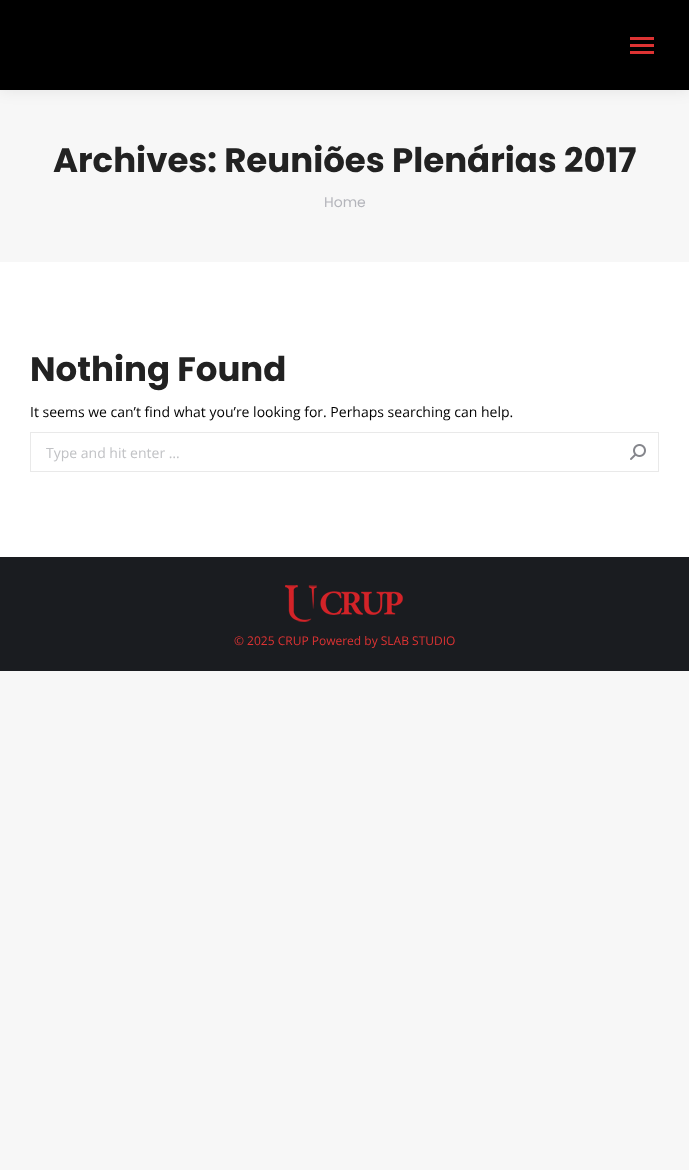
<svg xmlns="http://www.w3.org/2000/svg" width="689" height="1170">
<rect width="100%" height="100%" fill="#f7f7f7"/>
<rect y="262" width="689" height="295" fill="#fff"/>
<rect x="-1" y="-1" width="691" height="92" fill="#00000012" filter="blur(7.5px)"/>
<rect width="689" height="90" fill="#000"/>
<rect x="630" y="37" width="24" height="3" fill="#d33"/>
<rect x="630" y="44" width="24" height="3" fill="#d33"/>
<rect x="630" y="51" width="24" height="3" fill="#d33"/>
<text x="53" y="172" style="font-family:Poppins;font-size:34px;font-weight:bold;fill:#222">Archives: Reuniões Plenárias 2017</text>
<text x="324" y="207" style="font-family:Poppins;font-size:14px;fill:#b4b5bb">Home</text>
<text x="30" y="381" style="font-family:Poppins;font-size:34px;font-weight:bold;fill:#222">Nothing Found</text>
<text x="30" y="417" style="font-family:Open Sans;font-size:14px;fill:#000">It seems we can’t find what you’re looking for. Perhaps searching can help.</text>
<rect x="30.5" y="432.5" width="628" height="39" fill="none" stroke="#e9e9e9"/>
<text x="46" y="458" style="font-family:Open Sans;font-size:14px;fill:#c1c2c5">Type and hit enter …</text>
<image x="630" y="444" width="16" height="16" href="media/1.png"/>
<rect y="557" width="689" height="114" fill="#1a1c20"/>
<image x="285" y="585" width="118" height="37" href="media/2.png"/>
<text x="234" y="645" style="font-family:Open Sans;font-size:12px;fill:#d33">© 2025 CRUP Powered by SLAB STUDIO</text>
</svg>
